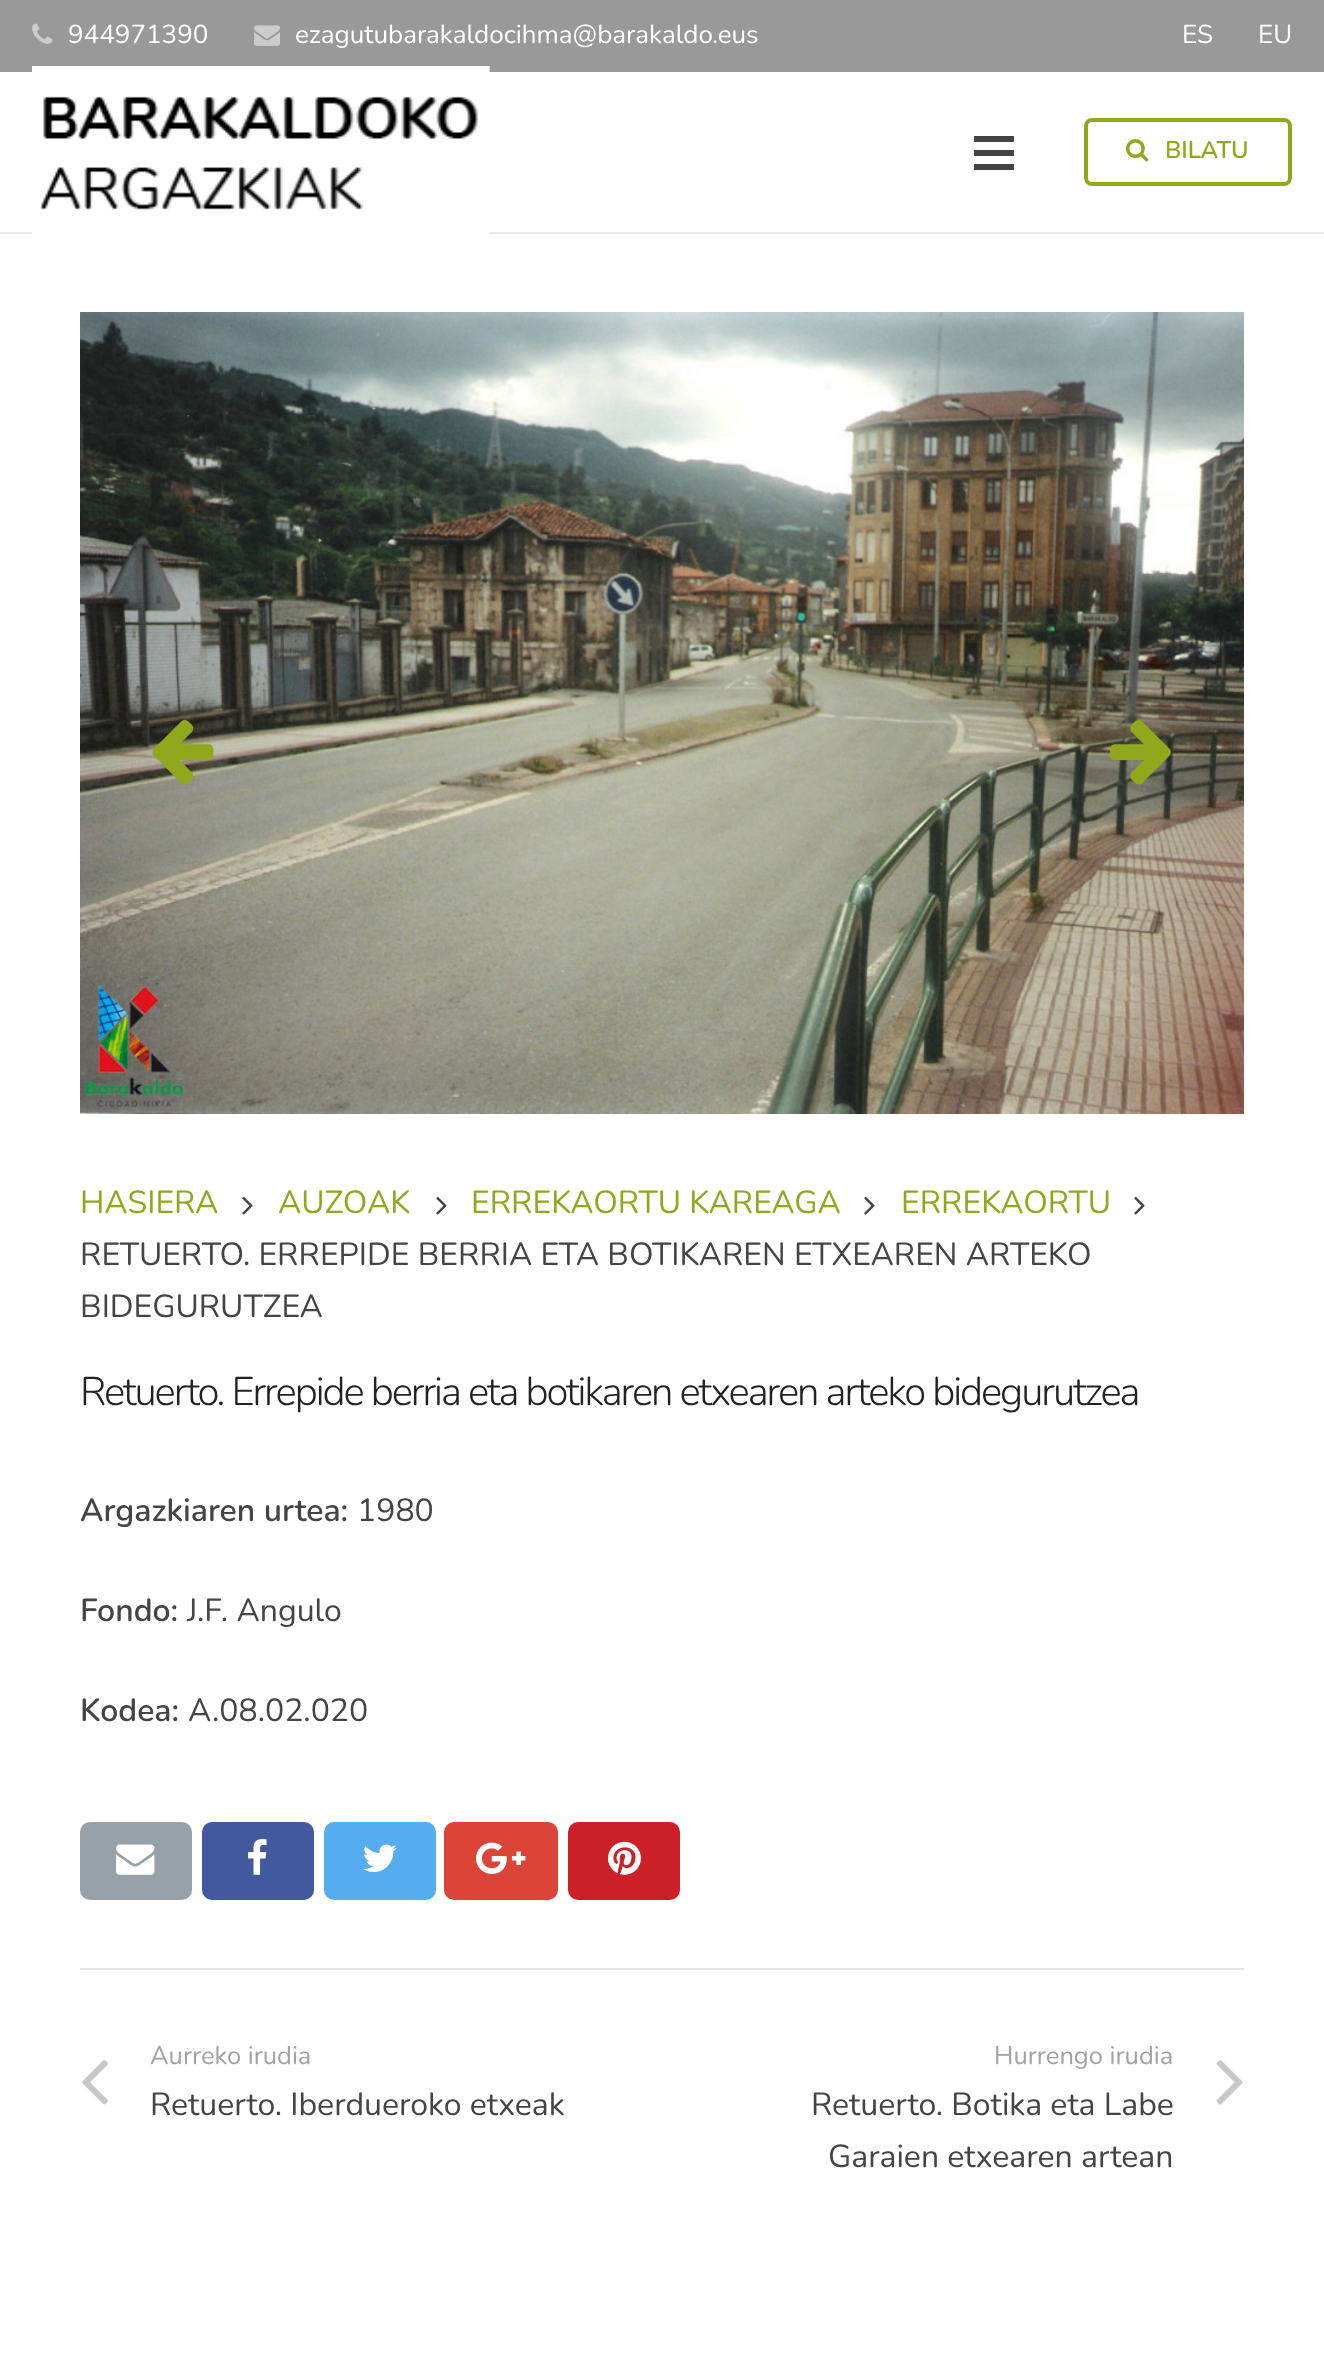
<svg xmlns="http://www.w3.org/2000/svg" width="1324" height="2373">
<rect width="100%" height="100%" fill="#fff"/>
<rect width="1324" height="72" fill="#999"/>
<image x="32" y="23" width="21" height="21" href="media/1.png"/>
<text x="68" y="43" style="font-family:Nunito;font-size:26px;fill:#fff">944971390</text>
<image x="254" y="25" width="26" height="21" href="media/2.png"/>
<text x="295" y="43" style="font-family:Nunito;font-size:26px;fill:#fff">ezagutubarakaldocihma@barakaldo.eus</text>
<text x="1182" y="43" style="font-family:Nunito;font-size:26px;fill:#fff">ES</text>
<text x="1258" y="43" style="font-family:Nunito;font-size:26px;fill:#fff">EU</text>
<rect y="232" width="1324" height="2" fill="#ebebeb"/>
<image x="32" y="66" width="458" height="168" href="media/3.png"/>
<rect x="974" y="150" width="40" height="6" fill="#444"/>
<rect x="974" y="136" width="40" height="6" fill="#444"/>
<rect x="974" y="164" width="40" height="6" fill="#444"/>
<image x="1126" y="139" width="23" height="23" href="media/4.png"/>
<rect x="1086" y="120" width="204" height="64" rx="6" fill="none" stroke="#91a71c" stroke-width="4"/>
<text x="1165" y="158" style="font-family:Nunito;font-size:24px;font-weight:600;fill:#91a71c">BILATU</text>
<image x="80" y="312" width="1164" height="802" href="media/5.png"/>
<image x="152" y="720" width="62" height="65" href="media/6.png"/>
<image x="1110" y="720" width="61" height="65" href="media/7.png"/>
<text x="80" y="1213" style="font-family:Nunito;font-size:32px;fill:#91a71c">HASIERA</text>
<image x="242" y="1196" width="11" height="19" href="media/8.png"/>
<text x="278" y="1213" style="font-family:Nunito;font-size:32px;fill:#91a71c">AUZOAK</text>
<image x="436" y="1196" width="11" height="19" href="media/8.png"/>
<text x="471" y="1213" style="font-family:Nunito;font-size:32px;fill:#91a71c">ERREKAORTU KAREAGA</text>
<image x="864" y="1196" width="11" height="19" href="media/8.png"/>
<text x="901" y="1213" style="font-family:Nunito;font-size:32px;fill:#91a71c">ERREKAORTU</text>
<image x="1134" y="1196" width="11" height="19" href="media/8.png"/>
<text x="80" y="1265" style="font-family:Nunito;font-size:32px;fill:#444">RETUERTO. ERREPIDE BERRIA ETA BOTIKAREN ETXEAREN ARTEKO</text>
<text x="80" y="1317" style="font-family:Nunito;font-size:32px;fill:#444">BIDEGURUTZEA</text>
<text x="80" y="1405" style="font-family:Nunito;font-size:40px;font-weight:300;letter-spacing:-2px;fill:#222">Retuerto. Errepide berria eta botikaren etxearen arteko bidegurutzea</text>
<text x="80" y="1521" style="font-family:Nunito;font-size:32px;font-weight:600;fill:#444">Argazkiaren urtea:</text>
<text x="357" y="1521" style="font-family:Nunito;font-size:32px;fill:#444">1980</text>
<text x="80" y="1621" style="font-family:Nunito;font-size:32px;font-weight:600;fill:#444">Fondo:</text>
<text x="187" y="1621" style="font-family:Nunito;font-size:32px;fill:#444">J.F. Angulo</text>
<text x="80" y="1721" style="font-family:Nunito;font-size:32px;font-weight:600;fill:#444">Kodea:</text>
<text x="188" y="1721" style="font-family:Nunito;font-size:32px;fill:#444">A.08.02.020</text>
<rect x="80" y="1822" width="112" height="78" rx="10" fill="#96a2a8"/>
<image x="116" y="1844" width="39" height="31" href="media/9.png"/>
<rect x="202" y="1822" width="112" height="78" rx="10" fill="#42599e"/>
<image x="248" y="1839" width="19" height="36" href="media/10.png"/>
<rect x="324" y="1822" width="112" height="78" rx="10" fill="#55acee"/>
<image x="363" y="1844" width="34" height="28" href="media/11.png"/>
<rect x="444" y="1822" width="114" height="78" rx="10" fill="#db4437"/>
<image x="476" y="1842" width="50" height="32" href="media/12.png"/>
<rect x="568" y="1822" width="112" height="78" rx="10" fill="#cb2027"/>
<image x="608" y="1841" width="33" height="34" href="media/13.png"/>
<rect x="80" y="1968" width="1164" height="2" fill="#e5e5e5"/>
<text x="150" y="2064" style="font-family:Nunito;font-size:25.5px;fill:#a2a2a2">Aurreko irudia</text>
<image x="82" y="2060" width="26" height="45" href="media/14.png"/>
<text x="150" y="2115" style="font-family:Nunito;font-size:32px;fill:#444">Retuerto. Iberdueroko etxeak</text>
<text x="994" y="2064" style="font-family:Nunito;font-size:25.5px;fill:#a2a2a2">Hurrengo irudia</text>
<text x="811" y="2115" style="font-family:Nunito;font-size:32px;fill:#444">Retuerto. Botika eta Labe</text>
<image x="1216" y="2060" width="27" height="45" href="media/15.png"/>
<text x="828" y="2167" style="font-family:Nunito;font-size:32px;fill:#444">Garaien etxearen artean</text>
</svg>
